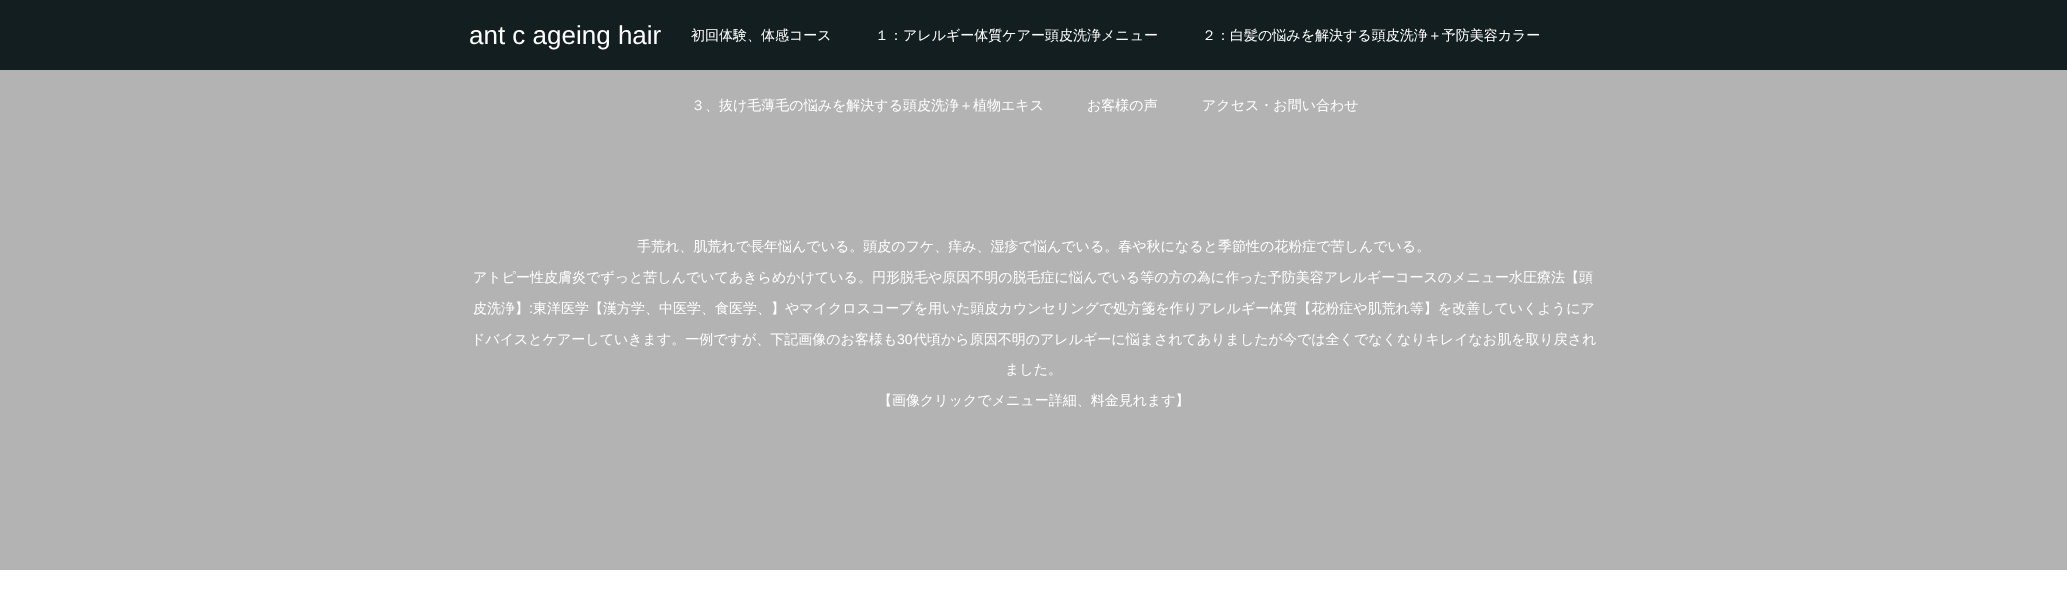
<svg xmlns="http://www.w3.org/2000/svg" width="2067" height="593">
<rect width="100%" height="100%" fill="#fff"/>
<rect width="2067" height="70" fill="#121e1f"/>
<text x="469" y="44" style="font-family:Liberation Sans;font-size:26px;fill:#fff">ant c ageing hair</text>
<text x="691" y="40" style="font-family:WenQuanYi Zen Hei;font-size:14px;font-weight:500;fill:#fff">初回体験、体感コース</text>
<text x="875" y="40" style="font-family:WenQuanYi Zen Hei;font-size:14px;font-weight:500;fill:#fff">１：アレルギー体質ケアー頭皮洗浄メニュー</text>
<text x="1202" y="40" style="font-family:WenQuanYi Zen Hei;font-size:14px;font-weight:500;fill:#fff">２：白髪の悩みを解決する頭皮洗浄＋予防美容カラー</text>
<rect y="70" width="2067" height="500" fill="#b3b3b3"/>
<text x="691" y="110" style="font-family:WenQuanYi Zen Hei;font-size:14px;font-weight:500;fill:#fff">３、抜け毛薄毛の悩みを解決する頭皮洗浄＋植物エキス</text>
<text x="1087" y="110" style="font-family:WenQuanYi Zen Hei;font-size:14px;font-weight:500;fill:#fff">お客様の声</text>
<text x="1202" y="110" style="font-family:WenQuanYi Zen Hei;font-size:14px;font-weight:500;fill:#fff">アクセス・お問い合わせ</text>
<text x="637" y="251" style="font-family:WenQuanYi Zen Hei;font-size:14px;font-weight:500;fill:#fff">手荒れ、肌荒れで長年悩んでいる。頭皮のフケ、痒み、湿疹で悩んでいる。春や秋になると季節性の花粉症で苦しんでいる。</text>
<text x="473" y="282" style="font-family:WenQuanYi Zen Hei;font-size:14px;font-weight:500;fill:#fff">アトピー性皮膚炎でずっと苦しんでいてあきらめかけている。円形脱毛や原因不明の脱毛症に悩んでいる等の方の為に作った予防美容アレルギーコースのメニュー水圧療法【頭</text>
<text x="473" y="313" style="font-family:WenQuanYi Zen Hei;font-size:14px;font-weight:500;fill:#fff">皮洗浄】</text>
<text x="529" y="313" style="font-family:Liberation Sans;font-size:14px;fill:#fff">:</text>
<text x="533" y="313" style="font-family:WenQuanYi Zen Hei;font-size:14px;font-weight:500;fill:#fff">東洋医学【漢方学、中医学、食医学、】やマイクロスコープを用いた頭皮カウンセリングで処方箋を作りアレルギー体質【花粉症や肌荒れ等】を改善していくようにア</text>
<text x="471" y="344" style="font-family:WenQuanYi Zen Hei;font-size:14px;font-weight:500;fill:#fff">ドバイスとケアーしていきます。一例ですが、下記画像のお客様も</text>
<text x="897" y="344" style="font-family:Liberation Sans;font-size:14px;fill:#fff">30</text>
<text x="913" y="344" style="font-family:WenQuanYi Zen Hei;font-size:14px;font-weight:500;fill:#fff">代頃から原因不明のアレルギーに悩まされてありましたが今では全くでなくなりキレイなお肌を取り戻され</text>
<text x="1005" y="374" style="font-family:WenQuanYi Zen Hei;font-size:14px;font-weight:500;fill:#fff">ました。</text>
<text x="878" y="405" style="font-family:WenQuanYi Zen Hei;font-size:14px;font-weight:500;fill:#fff">【画像クリックでメニュー詳細、料金見れます】</text>
</svg>
